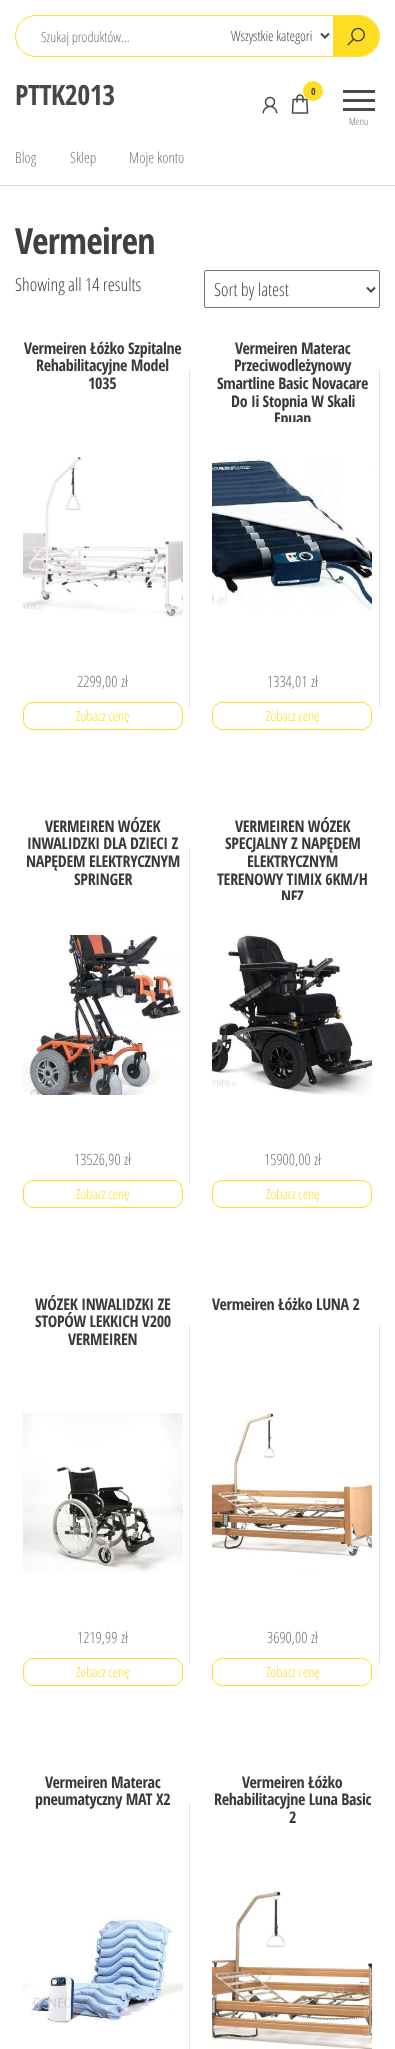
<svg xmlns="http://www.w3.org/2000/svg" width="395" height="2049">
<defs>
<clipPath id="clip1"><rect x="212" y="332" width="160" height="90"/></clipPath>
<clipPath id="clip2"><rect x="212" y="810" width="160" height="90"/></clipPath>
</defs>
<rect width="100%" height="100%" fill="#fff"/>
<rect x="15.5" y="15.5" width="364" height="41" rx="20.5" fill="none" stroke="#fd2"/>
<text x="41" y="42" style="font-family:Open Sans Condensed;font-size:14px;font-weight:300;fill:#757575">Szukaj produktów...</text>
<path d="M321 33.5l4 4l4-4" fill="none" stroke="#484848" stroke-width="2"/>
<text x="231" y="41" style="font-family:Open Sans Condensed;font-size:14px;font-weight:300;fill:#484848">Wszystkie kategori</text>
<path d="M333 16h26c11 0 20 9 20 20c0 11-9 20-20 20h-26z" fill="#fd2"/>
<image x="347" y="27" width="18" height="19" href="media/1.png"/>
<rect y="185" width="395" height="1" fill="#ddd"/>
<text x="15" y="105" style="font-family:Open Sans Condensed;font-size:28px;font-weight:bold;letter-spacing:-0.5px;fill:#484848">PTTK2013</text>
<image x="262" y="96" width="16" height="18" href="media/2.png"/>
<image x="291" y="94" width="18" height="20" href="media/3.png"/>
<circle cx="313" cy="91" r="10" fill="#fd2"/>
<text x="311" y="95" style="font-family:Open Sans Condensed;font-size:10px;font-weight:bold;fill:#484848">0</text>
<rect x="343" y="90" width="32" height="3" fill="#484848"/>
<rect x="343" y="99" width="32" height="3" fill="#484848"/>
<rect x="343" y="108" width="32" height="3" fill="#484848"/>
<text x="349" y="125" style="font-family:Open Sans Condensed;font-size:10px;font-weight:300;fill:#757575">Menu</text>
<text x="15" y="163" style="font-family:Open Sans Condensed;font-size:15px;font-weight:300;fill:#757575">Blog</text>
<text x="70" y="163" style="font-family:Open Sans Condensed;font-size:15px;font-weight:300;fill:#757575">Sklep</text>
<text x="129" y="163" style="font-family:Open Sans Condensed;font-size:15px;font-weight:300;fill:#757575">Moje konto</text>
<text x="15" y="254" style="font-family:Open Sans Condensed;font-size:36px;font-weight:bold;letter-spacing:-0.75px;fill:#404040">Vermeiren</text>
<text x="15" y="291" style="font-family:Open Sans Condensed;font-size:18px;font-weight:300;fill:#404040">Showing all 14 results</text>
<rect x="204.5" y="270.5" width="175" height="37" rx="1.5" fill="none" stroke="#767676"/>
<path d="M367 287.5l4 4l4-4" fill="none" stroke="#484848" stroke-width="2"/>
<text x="214" y="296" style="font-family:Open Sans Condensed;font-size:18px;font-weight:300;fill:#484848">Sort by latest</text>
<text x="24" y="354" style="font-family:Open Sans Condensed;font-size:16px;font-weight:bold;letter-spacing:-0.3px;fill:#39393a">Vermeiren Łóżko Szpitalne</text>
<text x="36" y="371" style="font-family:Open Sans Condensed;font-size:16px;font-weight:bold;letter-spacing:-0.3px;fill:#39393a">Rehabilitacyjne Model</text>
<text x="88" y="389" style="font-family:Open Sans Condensed;font-size:16px;font-weight:bold;letter-spacing:-0.3px;fill:#39393a">1035</text>
<image x="23" y="457" width="160" height="160" href="media/4.png"/>
<text x="77" y="687" style="font-family:Open Sans Condensed;font-size:15.5px;font-weight:300;fill:#757575">2299,00</text>
<text x="121" y="687" style="font-family:Open Sans Condensed;font-size:15.5px;font-weight:300;fill:#757575">zł</text>
<rect x="189" y="370" width="1" height="337" fill="#e2e2e2"/>
<rect x="23.5" y="702.5" width="159" height="27" rx="9.5" fill="none" stroke="#fd2"/>
<text x="76" y="721" style="font-family:Open Sans Condensed;font-size:14px;font-weight:300;fill:#fd2">Zobacz cenę</text>
<text x="235" y="354" style="font-family:Open Sans Condensed;font-size:16px;font-weight:bold;letter-spacing:-0.3px;fill:#39393a">Vermeiren Materac</text>
<text x="234" y="371" style="font-family:Open Sans Condensed;font-size:16px;font-weight:bold;letter-spacing:-0.3px;fill:#39393a">Przeciwodleżynowy</text>
<text x="217" y="389" style="font-family:Open Sans Condensed;font-size:16px;font-weight:bold;letter-spacing:-0.3px;fill:#39393a">Smartline Basic Novacare</text>
<text x="231" y="407" style="font-family:Open Sans Condensed;font-size:16px;font-weight:bold;letter-spacing:-0.3px;fill:#39393a">Do Ii Stopnia W Skali</text>
<g clip-path="url(#clip1)">
<text x="274" y="424" style="font-family:Open Sans Condensed;font-size:16px;font-weight:bold;letter-spacing:-0.3px;fill:#39393a">Epuap</text>
</g>
<image x="212" y="457" width="160" height="154" href="media/5.png"/>
<text x="267" y="687" style="font-family:Open Sans Condensed;font-size:15.5px;font-weight:300;fill:#757575">1334,01</text>
<text x="311" y="687" style="font-family:Open Sans Condensed;font-size:15.5px;font-weight:300;fill:#757575">zł</text>
<rect x="379" y="370" width="1" height="337" fill="#e2e2e2"/>
<rect x="212.5" y="702.5" width="159" height="27" rx="9.5" fill="none" stroke="#fd2"/>
<text x="266" y="721" style="font-family:Open Sans Condensed;font-size:14px;font-weight:300;fill:#fd2">Zobacz cenę</text>
<text x="45" y="832" style="font-family:Open Sans Condensed;font-size:16px;font-weight:bold;letter-spacing:-0.3px;fill:#39393a">VERMEIREN WÓZEK</text>
<text x="27" y="849" style="font-family:Open Sans Condensed;font-size:16px;font-weight:bold;letter-spacing:-0.3px;fill:#39393a">INWALIDZKI DLA DZIECI Z</text>
<text x="26" y="867" style="font-family:Open Sans Condensed;font-size:16px;font-weight:bold;letter-spacing:-0.3px;fill:#39393a">NAPĘDEM ELEKTRYCZNYM</text>
<text x="74" y="885" style="font-family:Open Sans Condensed;font-size:16px;font-weight:bold;letter-spacing:-0.3px;fill:#39393a">SPRINGER</text>
<image x="23" y="935" width="160" height="160" href="media/6.png"/>
<text x="74" y="1165" style="font-family:Open Sans Condensed;font-size:15.5px;font-weight:300;fill:#757575">13526,90</text>
<text x="124" y="1165" style="font-family:Open Sans Condensed;font-size:15.5px;font-weight:300;fill:#757575">zł</text>
<rect x="189" y="848" width="1" height="337" fill="#e2e2e2"/>
<rect x="23.5" y="1180.5" width="159" height="27" rx="9.5" fill="none" stroke="#fd2"/>
<text x="76" y="1199" style="font-family:Open Sans Condensed;font-size:14px;font-weight:300;fill:#fd2">Zobacz cenę</text>
<text x="235" y="832" style="font-family:Open Sans Condensed;font-size:16px;font-weight:bold;letter-spacing:-0.3px;fill:#39393a">VERMEIREN WÓZEK</text>
<text x="225" y="849" style="font-family:Open Sans Condensed;font-size:16px;font-weight:bold;letter-spacing:-0.3px;fill:#39393a">SPECJALNY Z NAPĘDEM</text>
<text x="247" y="867" style="font-family:Open Sans Condensed;font-size:16px;font-weight:bold;letter-spacing:-0.3px;fill:#39393a">ELEKTRYCZNYM</text>
<text x="217" y="885" style="font-family:Open Sans Condensed;font-size:16px;font-weight:bold;letter-spacing:-0.3px;fill:#39393a">TERENOWY TIMIX 6KM/H</text>
<g clip-path="url(#clip2)">
<text x="281" y="902" style="font-family:Open Sans Condensed;font-size:16px;font-weight:bold;letter-spacing:-0.3px;fill:#39393a">NFZ</text>
</g>
<image x="212" y="935" width="160" height="160" href="media/7.png"/>
<text x="264" y="1165" style="font-family:Open Sans Condensed;font-size:15.5px;font-weight:300;fill:#757575">15900,00</text>
<text x="314" y="1165" style="font-family:Open Sans Condensed;font-size:15.5px;font-weight:300;fill:#757575">zł</text>
<rect x="212.5" y="1180.5" width="159" height="27" rx="9.5" fill="none" stroke="#fd2"/>
<text x="266" y="1199" style="font-family:Open Sans Condensed;font-size:14px;font-weight:300;fill:#fd2">Zobacz cenę</text>
<text x="35" y="1310" style="font-family:Open Sans Condensed;font-size:16px;font-weight:bold;letter-spacing:-0.3px;fill:#39393a">WÓZEK INWALIDZKI ZE</text>
<text x="35" y="1327" style="font-family:Open Sans Condensed;font-size:16px;font-weight:bold;letter-spacing:-0.3px;fill:#39393a">STOPÓW LEKKICH V200</text>
<text x="68" y="1345" style="font-family:Open Sans Condensed;font-size:16px;font-weight:bold;letter-spacing:-0.3px;fill:#39393a">VERMEIREN</text>
<image x="23" y="1413" width="160" height="160" href="media/8.png"/>
<text x="77" y="1643" style="font-family:Open Sans Condensed;font-size:15.5px;font-weight:300;fill:#757575">1219,99</text>
<text x="121" y="1643" style="font-family:Open Sans Condensed;font-size:15.5px;font-weight:300;fill:#757575">zł</text>
<rect x="189" y="1326" width="1" height="337" fill="#e2e2e2"/>
<rect x="23.5" y="1658.5" width="159" height="27" rx="9.5" fill="none" stroke="#fd2"/>
<text x="76" y="1677" style="font-family:Open Sans Condensed;font-size:14px;font-weight:300;fill:#fd2">Zobacz cenę</text>
<text x="212" y="1310" style="font-family:Open Sans Condensed;font-size:16px;font-weight:bold;letter-spacing:-0.3px;fill:#39393a">Vermeiren Łóżko LUNA 2</text>
<image x="212" y="1413" width="160" height="160" href="media/9.png"/>
<text x="267" y="1643" style="font-family:Open Sans Condensed;font-size:15.5px;font-weight:300;fill:#757575">3690,00</text>
<text x="311" y="1643" style="font-family:Open Sans Condensed;font-size:15.5px;font-weight:300;fill:#757575">zł</text>
<rect x="379" y="1326" width="1" height="337" fill="#e2e2e2"/>
<rect x="212.5" y="1658.5" width="159" height="27" rx="9.5" fill="none" stroke="#fd2"/>
<text x="266" y="1677" style="font-family:Open Sans Condensed;font-size:14px;font-weight:300;fill:#fd2">Zobacz cenę</text>
<text x="45" y="1788" style="font-family:Open Sans Condensed;font-size:16px;font-weight:bold;letter-spacing:-0.3px;fill:#39393a">Vermeiren Materac</text>
<text x="35" y="1805" style="font-family:Open Sans Condensed;font-size:16px;font-weight:bold;letter-spacing:-0.3px;fill:#39393a">pneumatyczny MAT X2</text>
<image x="23" y="1917" width="160" height="107" href="media/10.png"/>
<rect x="189" y="1804" width="1" height="245" fill="#e2e2e2"/>
<text x="242" y="1788" style="font-family:Open Sans Condensed;font-size:16px;font-weight:bold;letter-spacing:-0.3px;fill:#39393a">Vermeiren Łóżko</text>
<text x="214" y="1805" style="font-family:Open Sans Condensed;font-size:16px;font-weight:bold;letter-spacing:-0.3px;fill:#39393a">Rehabilitacyjne Luna Basic</text>
<text x="289" y="1823" style="font-family:Open Sans Condensed;font-size:16px;font-weight:bold;letter-spacing:-0.3px;fill:#39393a">2</text>
<image x="212" y="1891" width="160" height="158" href="media/11.png"/>
</svg>
